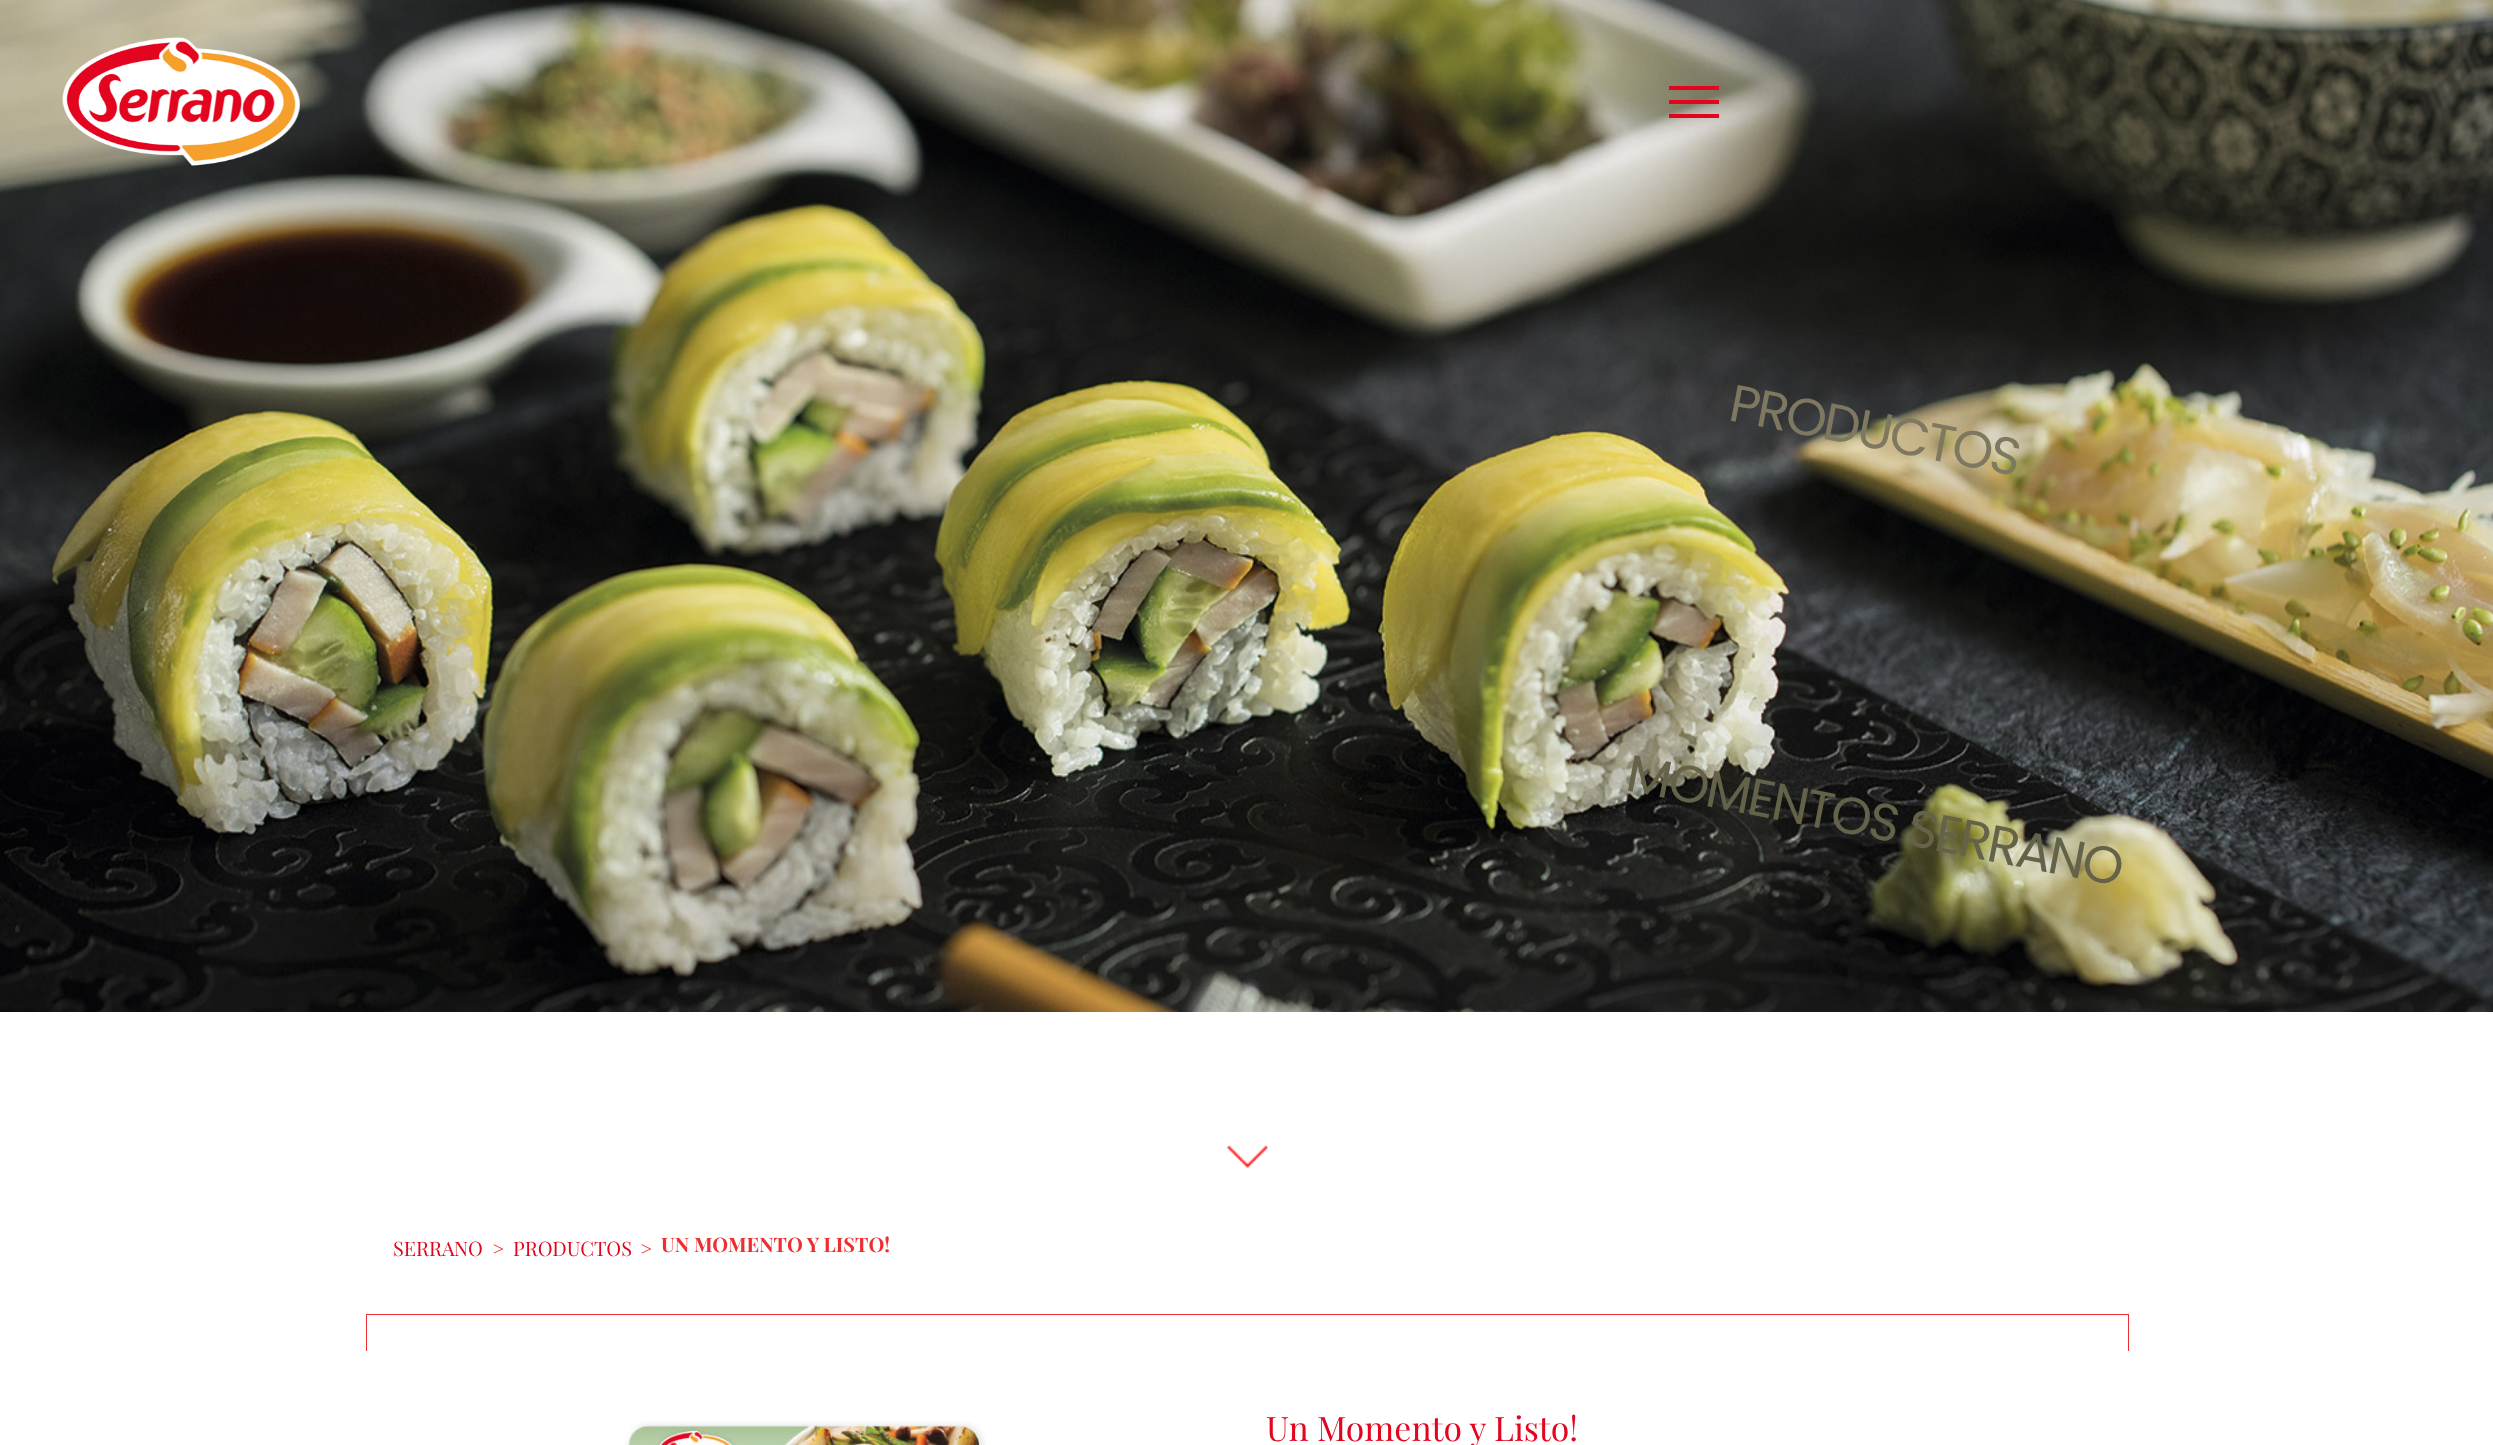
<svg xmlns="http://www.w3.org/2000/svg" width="2493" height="1445">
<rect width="100%" height="100%" fill="#fff"/>
<image x="0" y="0" width="2493" height="1012" href="media/2.png"/>
<image x="62" y="37" width="238" height="129" href="media/1.png"/>
<rect x="1669" y="86" width="50" height="4" fill="#e30420"/>
<rect x="1669" y="100" width="50" height="4" fill="#e30420"/>
<rect x="1669" y="114" width="50" height="4" fill="#e30420"/>
<text x="1727" y="420" transform="rotate(11 1727 420)" style="font-family:Poppins;font-size:52.25px;letter-spacing:-2.5px;fill:#7e7861">PRODUCTOS</text>
<text x="1624" y="790" transform="rotate(11 1624 790)" style="font-family:Poppins;font-size:52.25px;letter-spacing:-2.5px;fill:#646249">MOMENTOS SERRANO</text>
<image x="1227" y="1145" width="41" height="23" href="media/3.png"/>
<text x="393" y="1256" style="font-family:Playfair Display;font-size:20px;fill:#e3051f">SERRANO</text>
<text x="492" y="1256" style="font-family:Playfair Display;font-size:20px;fill:#ed2f31">&gt;</text>
<text x="513" y="1256" style="font-family:Playfair Display;font-size:20px;fill:#e3051f">PRODUCTOS</text>
<text x="640" y="1256" style="font-family:Playfair Display;font-size:20px;fill:#ed2f31">&gt;</text>
<text x="661" y="1252" style="font-family:Playfair Display;font-size:20px;font-weight:bold;fill:#ed2f31">UN MOMENTO Y LISTO!</text>
<rect x="366" y="1314" width="1763" height="1" fill="#ed2f31"/>
<rect x="2128" y="1314" width="1" height="37" fill="#ed2f31"/>
<rect x="366" y="1314" width="1" height="37" fill="#ed2f31"/>
<image x="623" y="1421" width="363" height="24" href="media/4.png"/>
<text x="1266" y="1441" style="font-family:Playfair Display;font-size:33.75px;fill:#e3051f">Un Momento y Listo!</text>
</svg>
